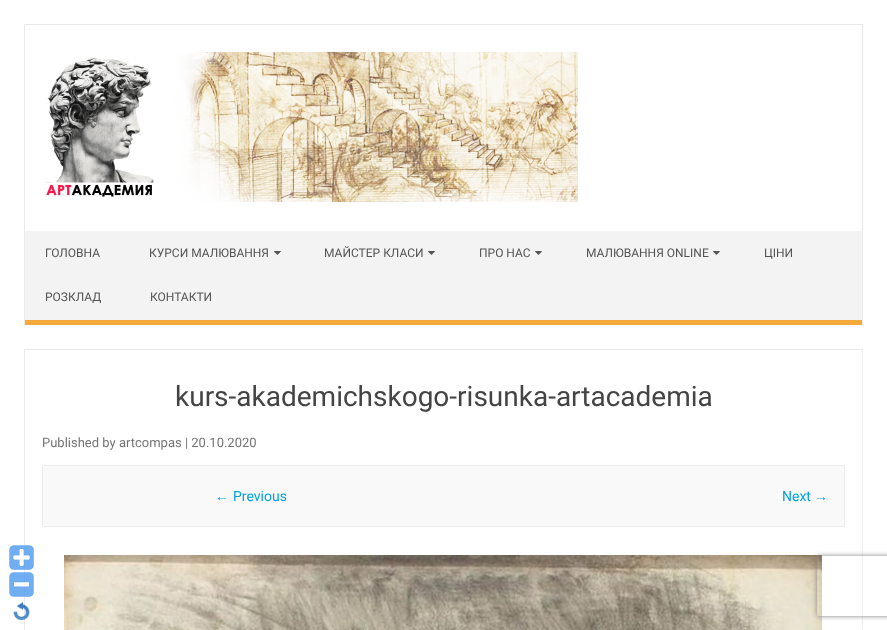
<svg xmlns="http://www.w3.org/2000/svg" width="887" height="630">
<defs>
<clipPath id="clip1"><path d="M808 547h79v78h-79zm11 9h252c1 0 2 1 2 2v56c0 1-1 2-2 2h-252c-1 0-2-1-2-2v-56c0-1 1-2 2-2z" clip-rule="evenodd"/></clipPath>
</defs>
<rect width="100%" height="100%" fill="#fff"/>
<rect x="24" y="24" width="839" height="1" fill="#e9e9e9"/>
<rect x="862" y="24" width="1" height="301" fill="#e9e9e9"/>
<rect x="24" y="24" width="1" height="301" fill="#e9e9e9"/>
<image x="46" y="52" width="532" height="150" href="media/1.png"/>
<rect x="25" y="231" width="837" height="89" fill="#f3f3f3"/>
<rect x="25" y="320" width="837" height="5" fill="#f4aa3a"/>
<text x="45" y="257" style="font-family:Roboto;font-size:12px;fill:#555">ГОЛОВНА</text>
<text x="149" y="257" style="font-family:Roboto;font-size:12px;fill:#555">КУРСИ МАЛЮВАННЯ</text>
<image x="274" y="251" width="7" height="4" href="media/2.png"/>
<text x="324" y="257" style="font-family:Roboto;font-size:12px;fill:#555">МАЙСТЕР КЛАСИ</text>
<image x="428" y="251" width="7" height="4" href="media/2.png"/>
<text x="479" y="257" style="font-family:Roboto;font-size:12px;fill:#555">ПРО НАС</text>
<image x="535" y="251" width="7" height="4" href="media/2.png"/>
<text x="586" y="257" style="font-family:Roboto;font-size:12px;fill:#555">МАЛЮВАННЯ ONLINE</text>
<image x="713" y="251" width="7" height="4" href="media/2.png"/>
<text x="764" y="257" style="font-family:Roboto;font-size:12px;fill:#555">ЦІНИ</text>
<text x="45" y="301" style="font-family:Roboto;font-size:12px;fill:#555">РОЗКЛАД</text>
<text x="150" y="301" style="font-family:Roboto;font-size:12px;fill:#555">КОНТАКТИ</text>
<rect x="24.5" y="349.5" width="838" height="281" fill="none" stroke="#e9e9e9"/>
<rect x="862" y="350" width="1" height="280" fill="#f1f1f1"/>
<text x="175" y="406" style="font-family:Roboto;font-size:28px;fill:#444">kurs-akademichskogo-risunka-artacademia</text>
<text x="42" y="447" style="font-family:Roboto;font-size:13px;fill:#757575">Published by artcompas | 20.10.2020</text>
<rect x="42.5" y="465.5" width="802" height="61" fill="#f9f9f9" stroke="#ededed"/>
<text x="215" y="501" style="font-family:Liberation Sans;font-size:14px;fill:#00a1e0">←</text>
<text x="233" y="501" style="font-family:Roboto;font-size:14px;fill:#00a1e0">Previous</text>
<text x="782" y="501" style="font-family:Roboto;font-size:14px;fill:#00a1e0">Next</text>
<text x="814" y="501" style="font-family:Liberation Sans;font-size:14px;fill:#00a1e0">→</text>
<image x="64" y="555" width="758" height="75" href="media/3.png"/>
<image x="9" y="545" width="25" height="25" href="media/4.png"/>
<image x="9" y="572" width="25" height="25" href="media/5.png"/>
<image x="13" y="602" width="17" height="22" href="media/6.png"/>
<g clip-path="url(#clip1)">
<rect x="817" y="556" width="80" height="60" rx="2" fill="#808080" filter="blur(2.5px)"/>
</g>
</svg>
